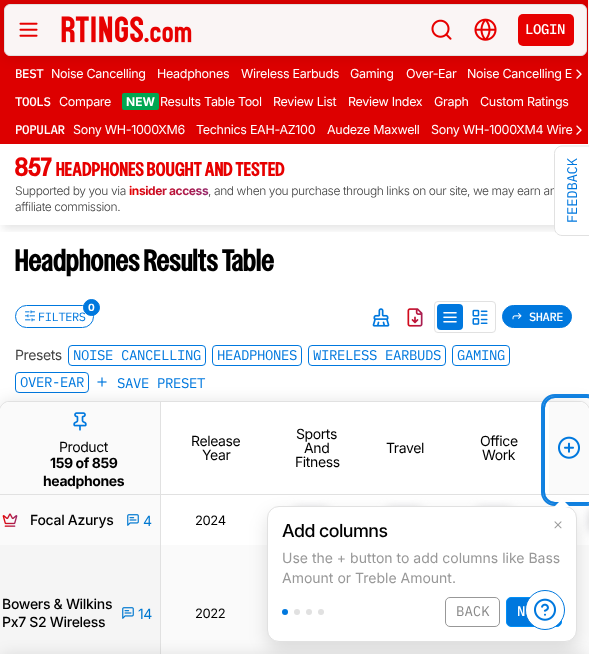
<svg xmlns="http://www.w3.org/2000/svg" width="589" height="654">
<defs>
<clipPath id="clip1"><path d="M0 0h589v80h-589zm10 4h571c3.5 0 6 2.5 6 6v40c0 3.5-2.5 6-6 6h-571c-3.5 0-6-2.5-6-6v-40c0-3.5 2.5-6 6-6z" clip-rule="evenodd"/></clipPath>
<clipPath id="clip2"><rect x="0" y="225" width="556" height="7"/></clipPath>
<linearGradient id="g1" gradientUnits="userSpaceOnUse" x1="129" y1="191" x2="208" y2="191"><stop offset="0" stop-color="#e70000"/><stop offset="1" stop-color="#96286a"/></linearGradient>
</defs>
<rect width="100%" height="100%" fill="#fff"/>
<rect width="588" height="144" fill="#d00"/>
<image x="576" y="69" width="6" height="10" href="media/5.png"/>
<g clip-path="url(#clip1)">
<rect x="4" y="4" width="583" height="52" rx="6" fill="#0000001a" filter="blur(7.5px)"/>
</g>
<rect x="4.5" y="4.5" width="582" height="51" rx="5.5" fill="#fafafafa" stroke="#e1e1e1"/>
<image x="19" y="22" width="19" height="15" href="media/1.png"/>
<image x="61" y="16" width="131" height="27" href="media/2.png"/>
<image x="431" y="19" width="21" height="21" href="media/3.png"/>
<image x="474" y="18" width="23" height="23" href="media/4.png"/>
<rect x="518" y="14" width="56" height="32" rx="5" fill="#e70000"/>
<text x="525" y="34" style="font-family:IBM Plex Mono;font-size:14px;font-weight:500;letter-spacing:-0.4px;fill:#fff">LOGIN</text>
<text x="15" y="78" style="font-family:IBM Plex Mono;font-size:12.5px;font-weight:500;letter-spacing:-0.4px;fill:#fff">BEST</text>
<text x="51" y="78" style="font-family:Inter;font-size:12.5px;letter-spacing:-0.3px;fill:#fff">Noise Cancelling</text>
<text x="157" y="78" style="font-family:Inter;font-size:12.5px;letter-spacing:-0.3px;fill:#fff">Headphones</text>
<text x="241" y="78" style="font-family:Inter;font-size:12.5px;letter-spacing:-0.3px;fill:#fff">Wireless Earbuds</text>
<text x="350" y="78" style="font-family:Inter;font-size:12.5px;letter-spacing:-0.3px;fill:#fff">Gaming</text>
<text x="406" y="78" style="font-family:Inter;font-size:12.5px;letter-spacing:-0.3px;fill:#fff">Over-Ear</text>
<text x="467" y="78" style="font-family:Inter;font-size:12.5px;letter-spacing:-0.3px;fill:#fff">Noise Cancelling E</text>
<text x="15" y="106" style="font-family:IBM Plex Mono;font-size:12.5px;font-weight:500;letter-spacing:-0.4px;fill:#fff">TOOLS</text>
<text x="59" y="106" style="font-family:Inter;font-size:12.5px;letter-spacing:-0.3px;fill:#fff">Compare</text>
<rect x="122" y="93" width="37" height="17" rx="2" fill="#00a651"/>
<text x="126" y="106" style="font-family:Inter;font-size:12px;font-weight:bold;fill:#fff">NEW</text>
<text x="160" y="106" style="font-family:Inter;font-size:12.5px;letter-spacing:-0.3px;fill:#fff">Results Table Tool</text>
<text x="273" y="106" style="font-family:Inter;font-size:12.5px;letter-spacing:-0.3px;fill:#fff">Review List</text>
<text x="348" y="106" style="font-family:Inter;font-size:12.5px;letter-spacing:-0.3px;fill:#fff">Review Index</text>
<text x="434" y="106" style="font-family:Inter;font-size:12.5px;letter-spacing:-0.3px;fill:#fff">Graph</text>
<text x="480" y="106" style="font-family:Inter;font-size:12.5px;letter-spacing:-0.3px;fill:#fff">Custom Ratings</text>
<text x="15" y="134" style="font-family:IBM Plex Mono;font-size:12.5px;font-weight:500;letter-spacing:-0.4px;fill:#fff">POPULAR</text>
<text x="73" y="134" style="font-family:Inter;font-size:12.5px;letter-spacing:-0.3px;fill:#fff">Sony WH-1000XM6</text>
<text x="196" y="134" style="font-family:Inter;font-size:12.5px;letter-spacing:-0.3px;fill:#fff">Technics EAH-AZ100</text>
<text x="327" y="134" style="font-family:Inter;font-size:12.5px;letter-spacing:-0.3px;fill:#fff">Audeze Maxwell</text>
<text x="431" y="134" style="font-family:Inter;font-size:12.5px;letter-spacing:-0.3px;fill:#fff">Sony WH-1000XM4 Wire</text>
<image x="576" y="125" width="6" height="10" href="media/5.png"/>
<g clip-path="url(#clip2)">
<rect x="3" y="156" width="581" height="73" fill="#0000001a" filter="blur(4px)"/>
</g>
<text x="15" y="176" style="font-family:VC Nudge;font-size:24px;font-weight:bold;letter-spacing:0.3px;fill:#e70000">857</text>
<text x="56" y="176" style="font-family:VC Nudge;font-size:18px;font-weight:bold;letter-spacing:0.3px;fill:#e70000">HEADPHONES BOUGHT AND TESTED</text>
<text x="15" y="195" style="font-family:Inter;font-size:12px;font-weight:300;letter-spacing:-0.4px;fill:#434343">Supported by you via</text>
<text x="129" y="195" style="font-family:Inter;font-size:12px;font-weight:bold;letter-spacing:-0.4px;fill:url(#g1)">insider access</text>
<text x="208" y="195" style="font-family:Inter;font-size:12px;font-weight:300;letter-spacing:-0.4px;fill:#434343">, and when you purchase through links on our site, we may earn an</text>
<text x="15" y="211" style="font-family:Inter;font-size:12px;font-weight:300;letter-spacing:-0.4px;fill:#434343">affiliate commission.</text>
<path d="M554 228v-75c0-4 4-8 8-8h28v91h-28c-4 0-8-4-8-8z" fill="#fff"/>
<path d="M554.5 228v-74.5c0-4 3.5-7.5 7.5-7.5h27.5v89.5h-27.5c-4 0-7.5-3.5-7.5-7.5z" fill="none" stroke="#e1e1e1"/>
<text x="577" y="223" transform="rotate(-90 577 223)" style="font-family:IBM Plex Mono;font-size:14px;letter-spacing:-0.3px;fill:#0078de">FEEDBACK</text>
<text x="15" y="271" style="font-family:VC Nudge;font-size:28px;font-weight:bold;letter-spacing:0.3px;fill:#000">Headphones Results Table</text>
<rect x="15.5" y="305.5" width="78" height="22" rx="11" fill="none" stroke="#0078de"/>
<circle cx="91.5" cy="307.5" r="8" fill="#0078de" stroke="#0078de"/>
<text x="88" y="311" style="font-family:Inter;font-size:10px;font-weight:bold;fill:#fff">0</text>
<image x="25" y="310" width="10" height="12" href="media/6.png"/>
<text x="38" y="321" style="font-family:IBM Plex Mono;font-size:12px;letter-spacing:-0.4px;fill:#0078de">FILTERS</text>
<image x="372" y="308" width="18" height="19" href="media/7.png"/>
<image x="407" y="308" width="16" height="19" href="media/8.png"/>
<rect x="434.5" y="301.5" width="61" height="31" rx="3.5" fill="none" stroke="#e1e1e1"/>
<rect x="437" y="304" width="26" height="26" rx="4" fill="#0078de"/>
<image x="443" y="312" width="14" height="11" href="media/9.png"/>
<image x="472" y="309" width="16" height="16" href="media/10.png"/>
<rect x="502.5" y="305.5" width="69" height="22" rx="11" fill="#0078de" stroke="#0078de"/>
<image x="512" y="312" width="10" height="8" href="media/11.png"/>
<text x="529" y="321" style="font-family:IBM Plex Mono;font-size:12px;font-weight:500;letter-spacing:-0.4px;fill:#fff">SHARE</text>
<text x="15" y="360" style="font-family:Inter;font-size:14px;letter-spacing:-0.4px;fill:#434343">Presets</text>
<rect x="68.5" y="345.5" width="137" height="20" rx="3.5" fill="none" stroke="#0078de"/>
<text x="73" y="360" style="font-family:IBM Plex Mono;font-size:14px;letter-spacing:-0.4px;fill:#0078de">NOISE CANCELLING</text>
<rect x="212.5" y="345.5" width="89" height="20" rx="3.5" fill="none" stroke="#0078de"/>
<text x="217" y="360" style="font-family:IBM Plex Mono;font-size:14px;letter-spacing:-0.4px;fill:#0078de">HEADPHONES</text>
<rect x="308.5" y="345.5" width="137" height="20" rx="3.5" fill="none" stroke="#0078de"/>
<text x="313" y="360" style="font-family:IBM Plex Mono;font-size:14px;letter-spacing:-0.4px;fill:#0078de">WIRELESS EARBUDS</text>
<rect x="452.5" y="345.5" width="57" height="20" rx="3.5" fill="none" stroke="#0078de"/>
<text x="457" y="360" style="font-family:IBM Plex Mono;font-size:14px;letter-spacing:-0.4px;fill:#0078de">GAMING</text>
<rect x="15.5" y="372.5" width="73" height="20" rx="3.5" fill="none" stroke="#0078de"/>
<text x="20" y="387" style="font-family:IBM Plex Mono;font-size:14px;letter-spacing:-0.4px;fill:#0078de">OVER-EAR</text>
<image x="97" y="377" width="10" height="10" href="media/12.png"/>
<text x="117" y="388" style="font-family:IBM Plex Mono;font-size:14px;letter-spacing:-0.4px;fill:#0078de">SAVE PRESET</text>
<rect x="-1" y="401" width="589" height="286" rx="10" fill="#0000001a" filter="blur(7.5px)"/>
<path d="M9 401.5h571c5 0 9.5 4.5 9.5 9.5v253.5h-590v-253.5c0-5 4.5-9.5 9.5-9.5z" fill="#fafafa" stroke="#e1e1e1"/>
<path d="M10 402h569c5.5 0 10 4.5 10 10v83h-589v-83c0-5.5 4.5-10 10-10z" fill="#fff"/>
<path d="M10 402h150v93h-160v-83c0-5.5 4.5-10 10-10z" fill="#fafafa"/>
<image x="73" y="412" width="14" height="19" href="media/13.png"/>
<text x="59" y="452" style="font-family:Inter;font-size:14px;letter-spacing:-0.4px;fill:#000">Product</text>
<text x="50" y="468" style="font-family:Inter;font-size:14px;font-weight:bold;letter-spacing:-0.4px;fill:#000">159 of 859</text>
<text x="43" y="486" style="font-family:Inter;font-size:14px;font-weight:bold;letter-spacing:-0.4px;fill:#000">headphones</text>
<rect y="494" width="160" height="1" fill="#e1e1e1"/>
<text x="191" y="446" style="font-family:Inter;font-size:14px;letter-spacing:-0.4px;fill:#000">Release</text>
<text x="202" y="460" style="font-family:Inter;font-size:14px;letter-spacing:-0.4px;fill:#000">Year</text>
<rect x="161" y="495" width="428" height="50" fill="#fff"/>
<rect x="293" y="509" width="36" height="23" rx="4" fill="#c9c9ce" filter="blur(5px)"/>
<rect x="386" y="509" width="36" height="23" rx="4" fill="#c9c9ce" filter="blur(5px)"/>
<rect x="476" y="509" width="36" height="23" rx="4" fill="#c9c9ce" filter="blur(5px)"/>
<rect x="161" y="494" width="378" height="1" fill="#e1e1e1"/>
<text x="296" y="439" style="font-family:Inter;font-size:14px;letter-spacing:-0.4px;fill:#000">Sports</text>
<text x="304" y="453" style="font-family:Inter;font-size:14px;letter-spacing:-0.4px;fill:#000">And</text>
<text x="295" y="467" style="font-family:Inter;font-size:14px;letter-spacing:-0.4px;fill:#000">Fitness</text>
<text x="386" y="453" style="font-family:Inter;font-size:14px;letter-spacing:-0.4px;fill:#000">Travel</text>
<text x="480" y="446" style="font-family:Inter;font-size:14px;letter-spacing:-0.4px;fill:#000">Office</text>
<text x="482" y="460" style="font-family:Inter;font-size:14px;letter-spacing:-0.4px;fill:#000">Work</text>
<rect x="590" y="509" width="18" height="23" rx="4" fill="#c9c9ce" filter="blur(5px)"/>
<path d="M539 402h40c5.5 0 10 4.5 10 10v83h-50z" fill="#fff"/>
<rect x="539" y="494" width="50" height="1" fill="#e1e1e1"/>
<rect x="160" y="402" width="1" height="252" fill="#e1e1e1"/>
<image x="2" y="513" width="16" height="14" href="media/14.png"/>
<text x="30" y="525" style="font-family:Inter;font-size:14px;font-weight:500;letter-spacing:-0.3px;fill:#000">Focal Azurys</text>
<image x="127" y="514" width="12" height="12" href="media/15.png"/>
<text x="143" y="526" style="font-family:Inter;font-size:14px;letter-spacing:-0.4px;fill:#0078d0">4</text>
<text x="195" y="525" style="font-family:Inter;font-size:13px;letter-spacing:-0.4px;fill:#000">2024</text>
<rect y="545" width="160" height="109" fill="#f5f5f5"/>
<text x="2" y="609" style="font-family:Inter;font-size:14px;font-weight:500;letter-spacing:-0.3px;fill:#000">Bowers &amp; Wilkins</text>
<text x="2" y="627" style="font-family:Inter;font-size:14px;font-weight:500;letter-spacing:-0.3px;fill:#000">Px7 S2 Wireless</text>
<image x="122" y="607" width="12" height="12" href="media/16.png"/>
<text x="138" y="619" style="font-family:Inter;font-size:14px;letter-spacing:-0.4px;fill:#0078d0">14</text>
<text x="195" y="618" style="font-family:Inter;font-size:13px;letter-spacing:-0.4px;fill:#000">2022</text>
<path d="M549 402h30c5.5 0 10 4.5 10 10v82h-40z" fill="#fafafa"/>
<image x="558" y="436" width="22" height="23" href="media/17.png"/>
<rect y="654" width="589" height="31" rx="8" fill="#0000001a" filter="blur(7.5px)"/>
<rect x="542" y="395" width="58" height="110" rx="13" fill="none" stroke="#0078de33" stroke-width="2"/>
<rect x="544" y="397" width="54" height="106" rx="11" fill="none" stroke="#0078dee6" stroke-width="2"/>
<rect x="542" y="395" width="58" height="110" rx="13" fill="none" stroke="#0078dee6" stroke-width="2"/>
<rect x="544" y="397" width="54" height="106" rx="11" fill="none" stroke="#0078de66" stroke-width="2"/>
<rect x="267" y="514" width="310" height="136" rx="12" fill="#0000001f" filter="blur(9px)"/>
<rect x="267.5" y="506.5" width="309" height="135" rx="11.5" fill="#fff" stroke="#e1e1e1"/>
<path d="M570 507h-16l8-8z" fill="#fff"/>
<text x="282" y="537" style="font-family:'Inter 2';font-size:18px;font-weight:500;letter-spacing:-0.5px;fill:#000">Add columns</text>
<image x="554" y="521" width="8" height="8" href="media/18.png"/>
<text x="282" y="563" style="font-family:Inter;font-size:14px;fill:#989898">Use the + button to add columns like Bass</text>
<text x="282" y="583" style="font-family:Inter;font-size:14px;fill:#989898">Amount or Treble Amount.</text>
<circle cx="285" cy="612" r="3" fill="#0078de"/>
<circle cx="297" cy="612" r="3" fill="#e1e1e1"/>
<circle cx="309" cy="612" r="3" fill="#e1e1e1"/>
<circle cx="321" cy="612" r="3" fill="#e1e1e1"/>
<rect x="445.5" y="597.5" width="54" height="29" rx="4.5" fill="none" stroke="#989898"/>
<text x="456" y="616" style="font-family:IBM Plex Mono;font-size:14px;fill:#8a8a8a">BACK</text>
<rect x="506.5" y="597.5" width="55" height="29" rx="4.5" fill="#0078de" stroke="#0190f8"/>
<text x="517" y="616" style="font-family:IBM Plex Mono;font-size:14px;font-weight:500;fill:#fff">N</text>
<circle cx="545" cy="610" r="19.5" fill="#fff" stroke="#0078de"/>
<image x="534" y="598" width="22" height="23" href="media/19.png"/>
</svg>
